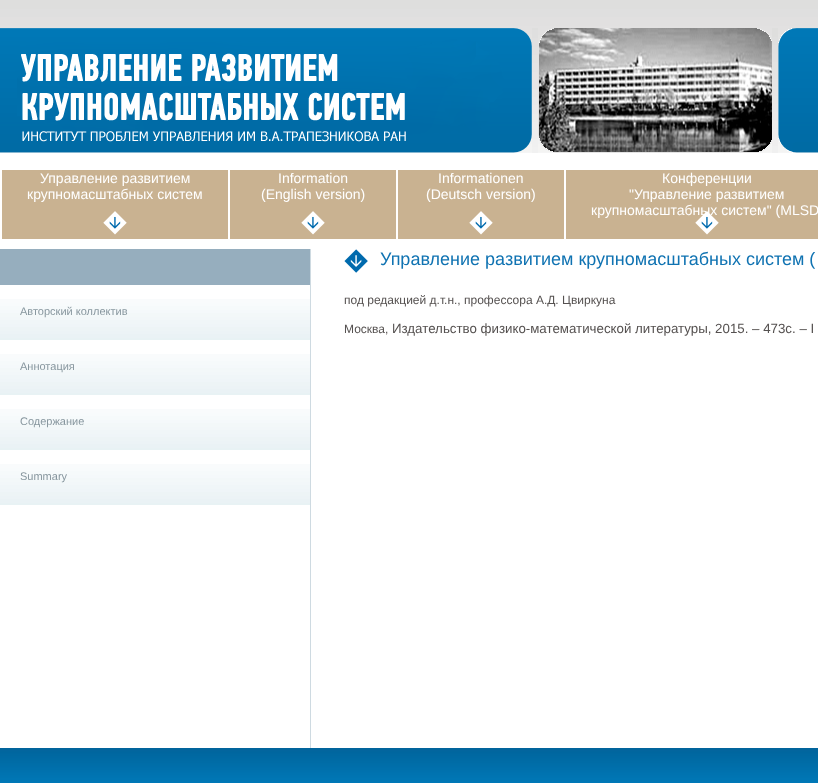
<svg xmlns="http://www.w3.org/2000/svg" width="818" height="783">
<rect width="100%" height="100%" fill="#fff"/>
<image x="0" y="0" width="818" height="153" href="media/1.png"/>
<image x="0" y="28" width="532" height="125" href="media/2.png"/>
<image x="21" y="53" width="385" height="89" href="media/3.png"/>
<image x="539" y="28" width="233" height="124" href="media/4.png"/>
<image x="532" y="28" width="246" height="125" href="media/5.png"/>
<image x="778" y="28" width="40" height="125" href="media/6.png"/>
<rect x="2" y="170" width="226" height="69" fill="#c9b291"/>
<image x="103" y="211" width="24" height="24" href="media/7.png"/>
<text x="40" y="183" style="font-family:Liberation Sans;font-size:14px;fill:#fff">Управление развитием</text>
<text x="27" y="199" style="font-family:Liberation Sans;font-size:14px;fill:#fff">крупномасштабных систем</text>
<rect x="230" y="170" width="166" height="69" fill="#c9b291"/>
<image x="301" y="211" width="24" height="24" href="media/7.png"/>
<text x="278" y="183" style="font-family:Liberation Sans;font-size:14px;fill:#fff">Information</text>
<text x="261" y="199" style="font-family:Liberation Sans;font-size:14px;fill:#fff">(English version)</text>
<rect x="398" y="170" width="166" height="69" fill="#c9b291"/>
<image x="469" y="211" width="24" height="24" href="media/7.png"/>
<text x="438" y="183" style="font-family:Liberation Sans;font-size:14px;fill:#fff">Informationen</text>
<text x="426" y="199" style="font-family:Liberation Sans;font-size:14px;fill:#fff">(Deutsch version)</text>
<rect x="566" y="170" width="252" height="69" fill="#c9b291"/>
<image x="695" y="211" width="24" height="24" href="media/7.png"/>
<text x="662" y="183" style="font-family:Liberation Sans;font-size:14px;fill:#fff">Конференции</text>
<text x="629" y="199" style="font-family:Liberation Sans;font-size:14px;fill:#fff">"Управление развитием</text>
<text x="591" y="215" style="font-family:Liberation Sans;font-size:14px;fill:#fff">крупномасштабных систем" (MLSD</text>
<image x="344" y="249" width="24" height="24" href="media/8.png"/>
<text x="380" y="265" style="font-family:Liberation Sans;font-size:18px;fill:#1073b2">Управление развитием крупномасштабных систем (</text>
<text x="344" y="304" style="font-family:Liberation Sans;font-size:12px;fill:#555150">под редакцией д.т.н., профессора А.Д. Цвиркуна</text>
<text x="344" y="333" style="font-family:Liberation Sans;font-size:12px;fill:#555150">Москва,</text>
<text x="392" y="333" style="font-family:Liberation Sans;font-size:13.3px;fill:#555150">Издательство физико-математической литературы, 2015. – 473с. – I</text>
<rect x="310" y="249" width="1" height="499" fill="#cedae1"/>
<rect y="249" width="310" height="36" fill="#96aebe"/>
<image x="0" y="299" width="310" height="41" href="media/9.png"/>
<text x="20" y="315" style="font-family:Liberation Sans;font-size:11px;fill:#87969e">Авторский коллектив</text>
<image x="0" y="354" width="310" height="41" href="media/9.png"/>
<text x="20" y="370" style="font-family:Liberation Sans;font-size:11px;fill:#87969e">Аннотация</text>
<image x="0" y="409" width="310" height="41" href="media/9.png"/>
<text x="20" y="425" style="font-family:Liberation Sans;font-size:11px;fill:#87969e">Содержание</text>
<image x="0" y="464" width="310" height="41" href="media/9.png"/>
<text x="20" y="480" style="font-family:Liberation Sans;font-size:11px;fill:#87969e">Summary</text>
<image x="0" y="748" width="818" height="35" href="media/10.png"/>
</svg>
